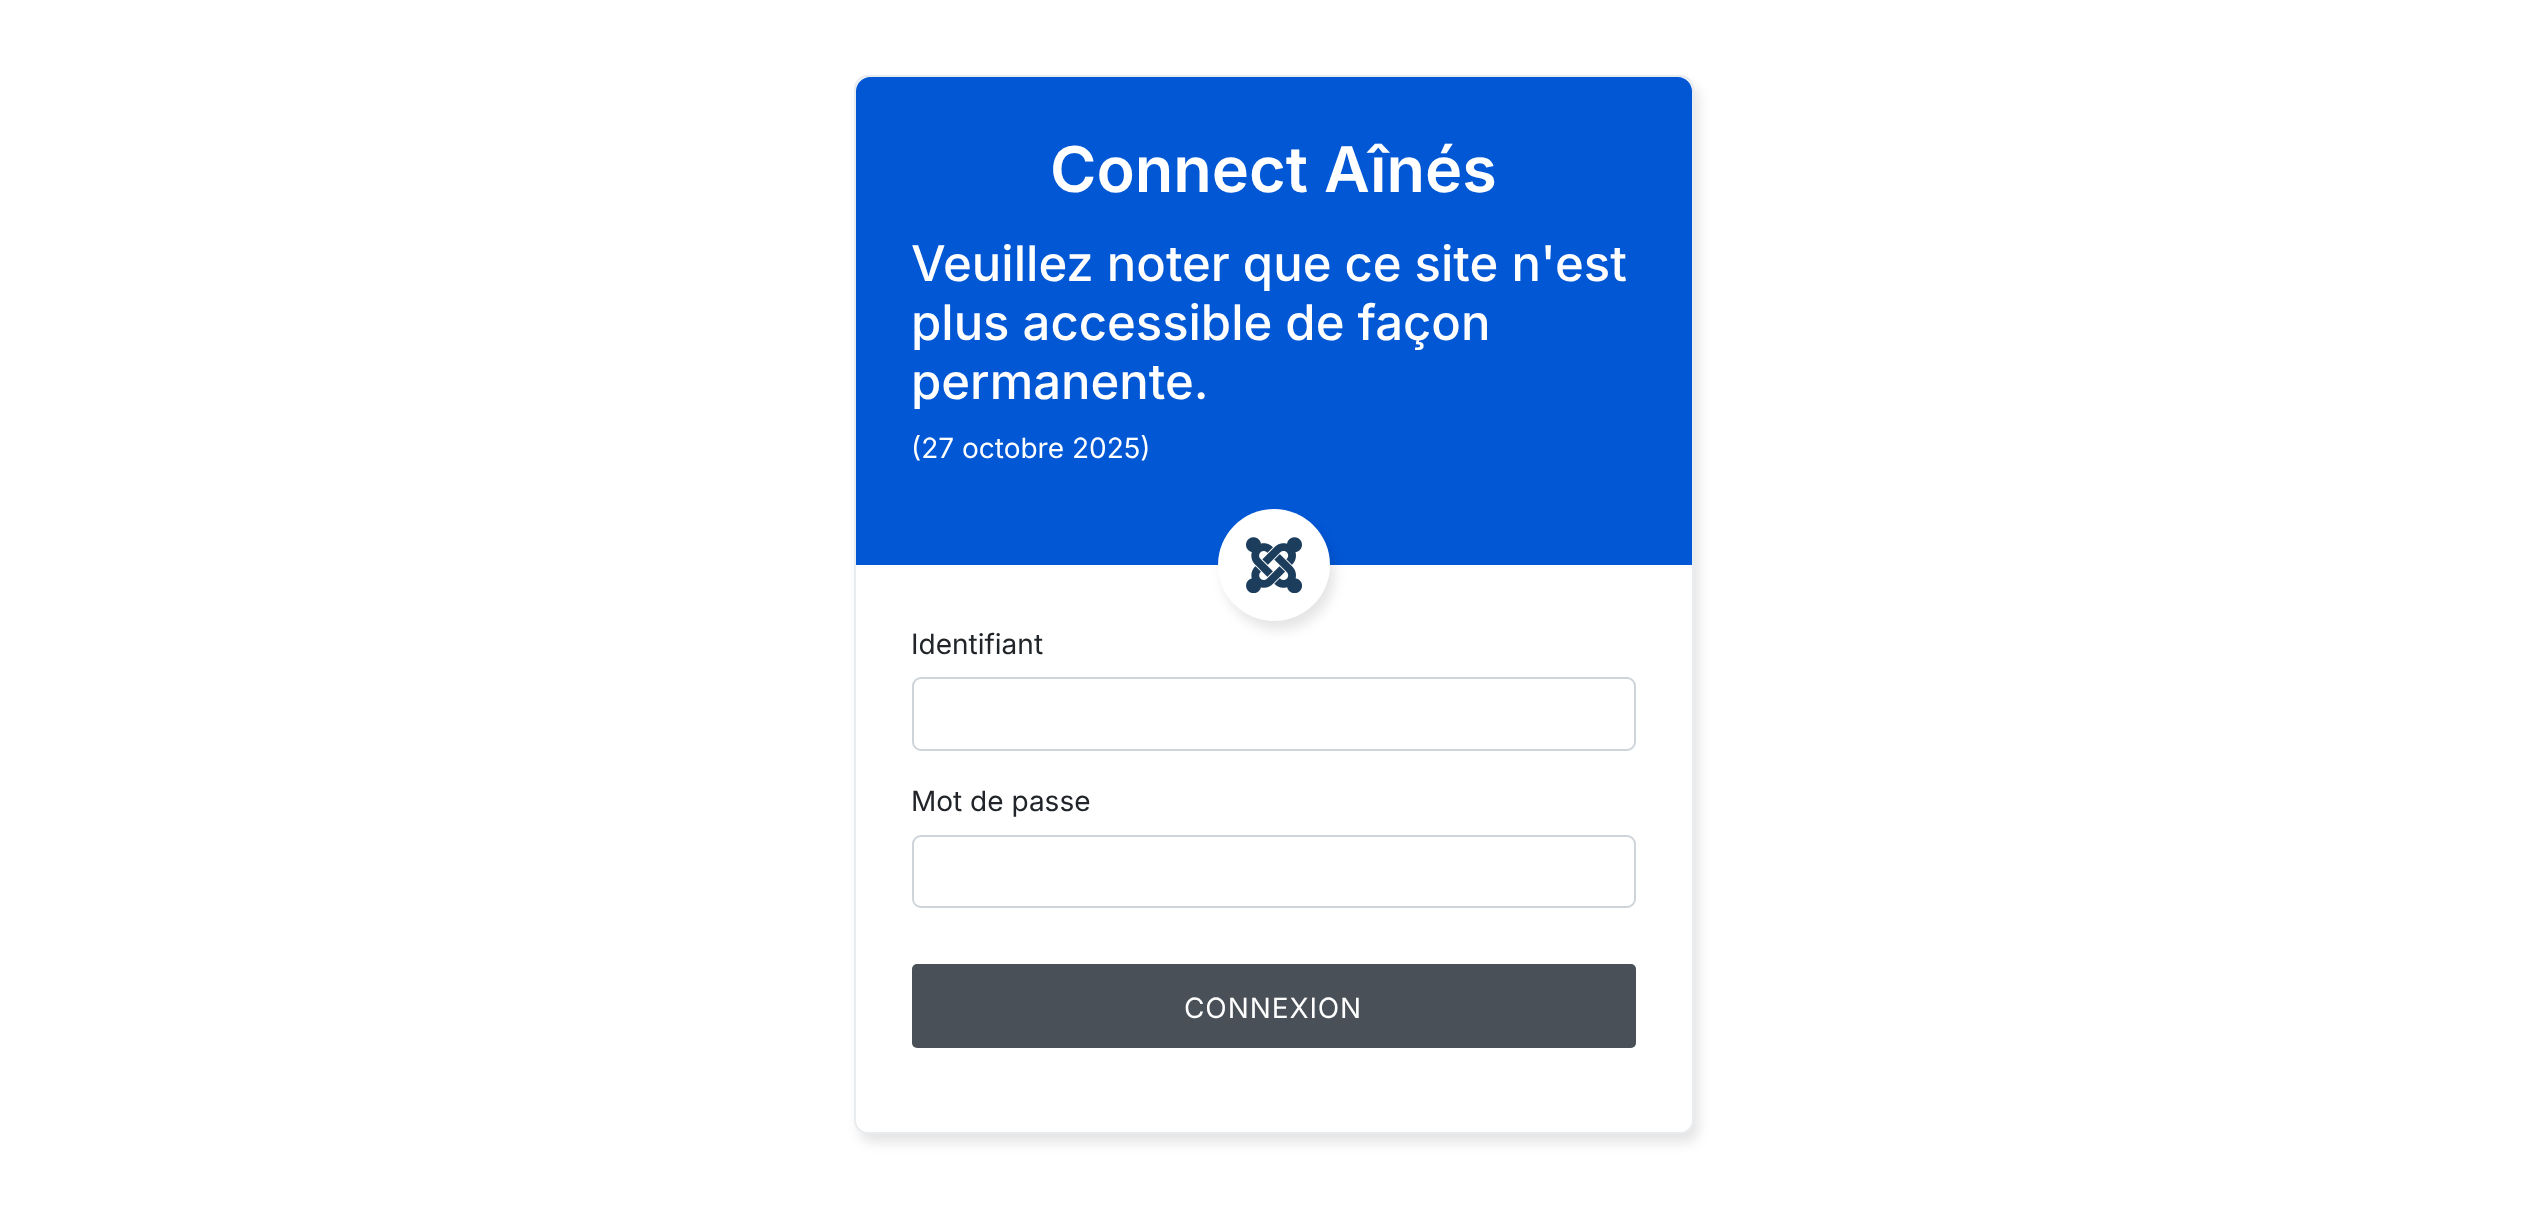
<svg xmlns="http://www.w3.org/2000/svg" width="2546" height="1209">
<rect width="100%" height="100%" fill="#fff"/>
<rect x="859" y="84" width="840" height="1059" rx="14" fill="#0000001a" filter="blur(6px)"/>
<rect x="855" y="76" width="838" height="1057" rx="13" fill="#fff" stroke="#e9ecef" stroke-width="2"/>
<path d="M870 77h808c7.5 0 14 6.5 14 14v474h-836v-474c0-7.5 6.5-14 14-14z" fill="#0257d5"/>
<text x="1050" y="192" style="font-family:Inter;font-size:63px;font-weight:600;fill:#fff">Connect Aînés</text>
<text x="911" y="281" style="font-family:Inter;font-size:49px;font-weight:500;fill:#fff">Veuillez noter que ce site n'est</text>
<text x="911" y="340" style="font-family:Inter;font-size:49px;font-weight:500;fill:#fff">plus accessible de façon</text>
<text x="911" y="399" style="font-family:Inter;font-size:49px;font-weight:500;fill:#fff">permanente.</text>
<text x="911" y="458" style="font-family:Inter;font-size:28px;fill:#fff">(27 octobre 2025)</text>
<rect x="1223" y="518" width="112" height="112" rx="56" fill="#0000001a" filter="blur(6px)"/>
<circle cx="1274" cy="565" r="56" fill="#fff"/>
<image x="1246" y="537" width="56" height="56" href="media/1.png"/>
<text x="911" y="654" style="font-family:Inter;font-size:28px;fill:#212529">Identifiant</text>
<rect x="913" y="678" width="722" height="72" rx="8" fill="none" stroke="#ced4da" stroke-width="2"/>
<text x="911" y="811" style="font-family:Inter;font-size:28px;fill:#212529">Mot de passe</text>
<rect x="913" y="836" width="722" height="71" rx="8" fill="none" stroke="#ced4da" stroke-width="2"/>
<rect x="912" y="964" width="724" height="84" rx="5" fill="#495057"/>
<text x="1184" y="1018" style="font-family:Inter;font-size:28px;letter-spacing:0.9px;fill:#fff">CONNEXION</text>
</svg>
